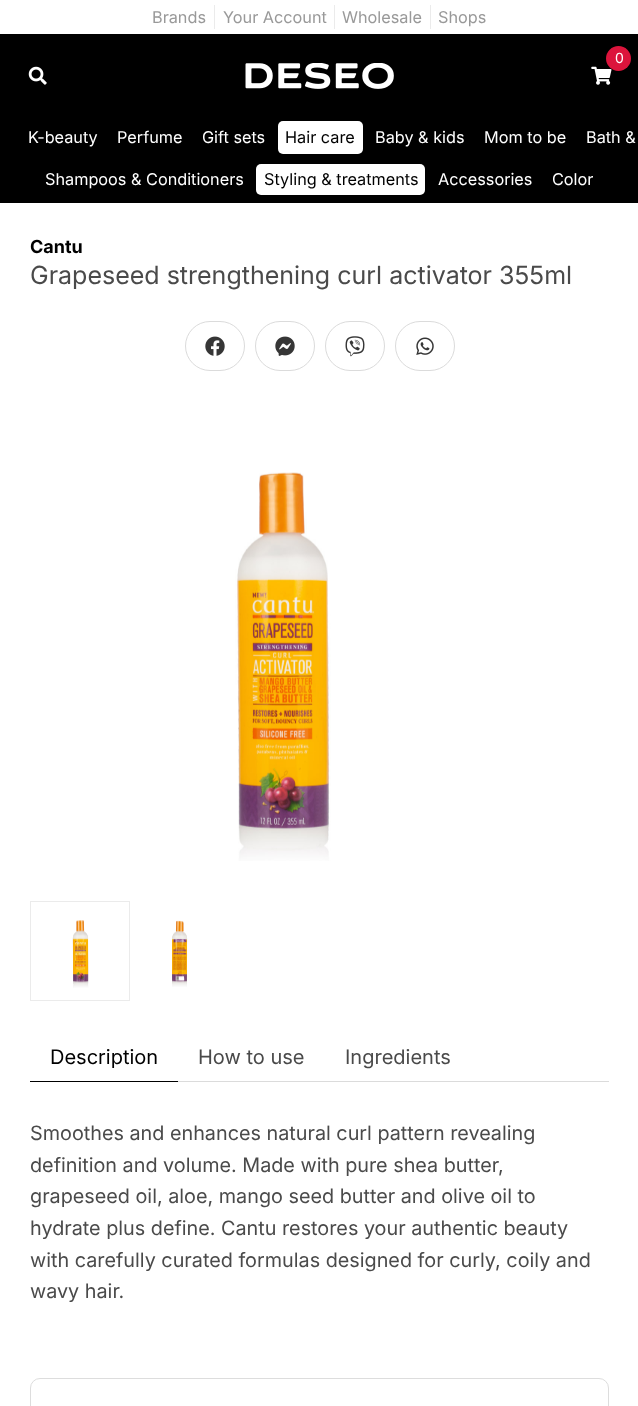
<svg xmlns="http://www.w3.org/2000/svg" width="638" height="1406">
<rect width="100%" height="100%" fill="#fff"/>
<rect x="214" y="5" width="1" height="24" fill="#ebebeb"/>
<text x="152" y="23" style="font-family:Inter;font-size:16.25px;fill:#999">Brands</text>
<rect x="334" y="5" width="1" height="24" fill="#ebebeb"/>
<text x="223" y="23" style="font-family:Inter;font-size:16.25px;fill:#999">Your Account</text>
<rect x="430" y="5" width="1" height="24" fill="#ebebeb"/>
<text x="342" y="23" style="font-family:Inter;font-size:16.25px;fill:#999">Wholesale</text>
<text x="438" y="23" style="font-family:Inter;font-size:16.25px;fill:#999">Shops</text>
<rect y="34" width="638" height="169" fill="#000"/>
<image x="591" y="66" width="21" height="19" href="media/1.png"/>
<circle cx="618.5" cy="58.5" r="12.5" fill="#dc143c"/>
<text x="615" y="63" style="font-family:Inter;font-size:14px;fill:#fff">0</text>
<image x="28" y="66" width="19" height="19" href="media/2.png"/>
<image x="245" y="63" width="149" height="26" href="media/3.png"/>
<text x="28" y="143" style="font-family:Inter;font-size:16.25px;fill:#fff">K-beauty</text>
<text x="117" y="143" style="font-family:Inter;font-size:16.25px;fill:#fff">Perfume</text>
<text x="202" y="143" style="font-family:Inter;font-size:16.25px;fill:#fff">Gift sets</text>
<rect x="278" y="121" width="85" height="33" rx="5" fill="#fff"/>
<text x="285" y="143" style="font-family:Inter;font-size:16.25px;fill:#000">Hair care</text>
<text x="375" y="143" style="font-family:Inter;font-size:16.25px;fill:#fff">Baby &amp; kids</text>
<text x="484" y="143" style="font-family:Inter;font-size:16.25px;fill:#fff">Mom to be</text>
<text x="586" y="143" style="font-family:Inter;font-size:16.25px;fill:#fff">Bath &amp;</text>
<text x="45" y="185" style="font-family:Inter;font-size:16.25px;fill:#fff">Shampoos &amp; Conditioners</text>
<rect x="256" y="164" width="169" height="31" rx="5" fill="#fff"/>
<text x="264" y="185" style="font-family:Inter;font-size:16.25px;fill:#000">Styling &amp; treatments</text>
<text x="438" y="185" style="font-family:Inter;font-size:16.25px;fill:#fff">Accessories</text>
<text x="552" y="185" style="font-family:Inter;font-size:16.25px;fill:#fff">Color</text>
<text x="30" y="253" style="font-family:Inter;font-size:18px;font-weight:bold;fill:#000">Cantu</text>
<text x="30" y="284" style="font-family:Inter;font-size:25px;fill:#4a4a4a">Grapeseed strengthening curl activator 355ml</text>
<rect x="185.5" y="321.5" width="59" height="49" rx="24.5" fill="none" stroke="#dbdbdb"/>
<image x="205" y="336" width="20" height="20" href="media/4.png"/>
<rect x="255.5" y="321.5" width="59" height="49" rx="24.5" fill="none" stroke="#dbdbdb"/>
<image x="275" y="336" width="20" height="20" href="media/5.png"/>
<rect x="325.5" y="321.5" width="59" height="49" rx="24.5" fill="none" stroke="#dbdbdb"/>
<image x="345" y="336" width="20" height="21" href="media/6.png"/>
<rect x="395.5" y="321.5" width="59" height="49" rx="24.5" fill="none" stroke="#dbdbdb"/>
<image x="416" y="337" width="18" height="18" href="media/7.png"/>
<image x="235" y="472" width="96" height="389" href="media/8.png"/>
<rect x="30.5" y="901.5" width="99" height="99" fill="none" stroke="#ebebeb"/>
<image x="72" y="920" width="17" height="68" href="media/9.png"/>
<image x="172" y="920" width="16" height="67" href="media/10.png"/>
<rect x="178" y="1081" width="431" height="1" fill="#dbdbdb"/>
<rect x="30" y="1081" width="148" height="1" fill="#000"/>
<text x="50" y="1064" style="font-family:Inter;font-size:20px;fill:#000">Description</text>
<text x="198" y="1064" style="font-family:Inter;font-size:20px;fill:#4a4a4a">How to use</text>
<text x="345" y="1064" style="font-family:Inter;font-size:20px;fill:#4a4a4a">Ingredients</text>
<text x="30" y="1140" style="font-family:Inter;font-size:19.8px;fill:#4a4a4a">Smoothes and enhances natural curl pattern revealing</text>
<text x="30" y="1172" style="font-family:Inter;font-size:19.8px;fill:#4a4a4a">definition and volume. Made with pure shea butter,</text>
<text x="30" y="1203" style="font-family:Inter;font-size:19.8px;fill:#4a4a4a">grapeseed oil, aloe, mango seed butter and olive oil to</text>
<text x="30" y="1235" style="font-family:Inter;font-size:19.8px;fill:#4a4a4a">hydrate plus define. Cantu restores your authentic beauty</text>
<text x="30" y="1267" style="font-family:Inter;font-size:19.8px;fill:#4a4a4a">with carefully curated formulas designed for curly, coily and</text>
<text x="30" y="1298" style="font-family:Inter;font-size:19.8px;fill:#4a4a4a">wavy hair.</text>
<rect x="30.5" y="1378.5" width="578" height="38" rx="9.5" fill="none" stroke="#ddd"/>
</svg>
